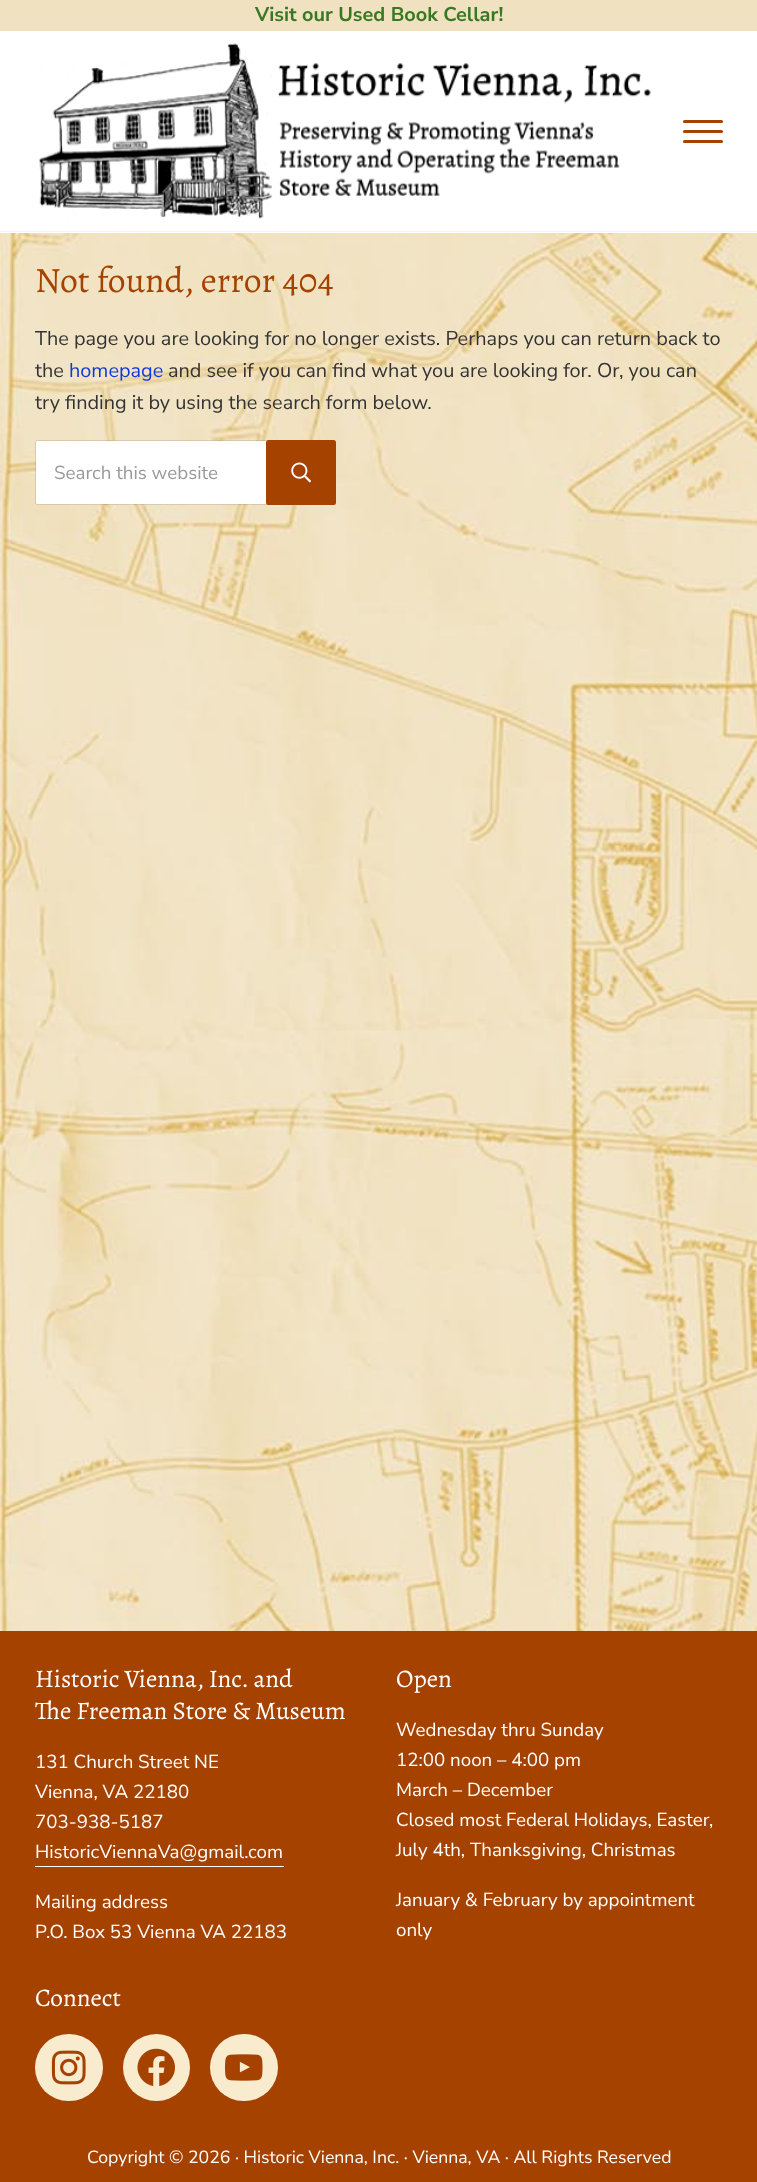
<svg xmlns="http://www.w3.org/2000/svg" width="757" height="2182">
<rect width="100%" height="100%" fill="#f0e1c0"/>
<text x="255" y="21" style="font-family:Nunito Sans;font-size:19.9px;font-weight:bold;fill:#397823">Visit our Used Book Cellar!</text>
<rect y="31" width="757" height="202" fill="#fff"/>
<rect y="231" width="757" height="1" fill="#f3f3f4"/>
<image x="39" y="43" width="612" height="176" href="media/1.png"/>
<rect x="683" y="130" width="40" height="3" rx="1.5" fill="#a64200"/>
<rect x="683" y="120" width="40" height="3" rx="1.5" fill="#a64200"/>
<rect x="683" y="140" width="40" height="3" rx="1.5" fill="#a64200"/>
<image x="0" y="233" width="757" height="1398" href="media/2.png"/>
<text x="35" y="292" style="font-family:Alegreya;font-size:35.75px;fill:#a64200">Not found, error 404</text>
<text x="35" y="345" style="font-family:Nunito Sans;font-size:19.9px;fill:#333">The page you are looking for no longer exists. Perhaps you can return back to</text>
<text x="35" y="377" style="font-family:Nunito Sans;font-size:19.9px;fill:#333">the</text>
<text x="69" y="377" style="font-family:Nunito Sans;font-size:19.9px;fill:#1039db">homepage</text>
<text x="168" y="377" style="font-family:Nunito Sans;font-size:19.9px;fill:#333">and see if you can find what you are looking for. Or, you can</text>
<text x="35" y="409" style="font-family:Nunito Sans;font-size:19.9px;fill:#333">try finding it by using the search form below.</text>
<rect x="36" y="441" width="257" height="63" rx="1" fill="#fff"/>
<rect x="35.5" y="440.5" width="258" height="64" rx="2" fill="none" stroke="#0000001a"/>
<text x="54" y="479" style="font-family:Nunito Sans;font-size:18.75px;fill:#999">Search this website</text>
<rect x="266" y="440" width="70" height="65" rx="2.5" fill="#a64200"/>
<image x="291" y="462" width="20" height="21" href="media/3.png"/>
<rect y="1631" width="757" height="551" fill="#a64200"/>
<text x="35" y="1687" style="font-family:Alegreya;font-size:25.25px;fill:#fff">Historic Vienna, Inc. and</text>
<text x="35" y="1719" style="font-family:Alegreya;font-size:25.25px;fill:#fff">The Freeman Store &amp; Museum</text>
<text x="35" y="1768" style="font-family:Nunito Sans;font-size:18.75px;fill:#fff">131 Church Street NE</text>
<text x="35" y="1798" style="font-family:Nunito Sans;font-size:18.75px;fill:#fff">Vienna, VA 22180</text>
<text x="35" y="1828" style="font-family:Nunito Sans;font-size:18.75px;fill:#fff">703-938-5187</text>
<text x="35" y="1858" style="font-family:Nunito Sans;font-size:18.75px;fill:#fff">HistoricViennaVa@gmail.com</text>
<rect x="35" y="1866" width="249" height="1" fill="#fff"/>
<text x="35" y="1908" style="font-family:Nunito Sans;font-size:18.75px;fill:#fff">Mailing address</text>
<text x="35" y="1938" style="font-family:Nunito Sans;font-size:18.75px;fill:#fff">P.O. Box 53 Vienna VA 22183</text>
<text x="396" y="1687" style="font-family:Alegreya;font-size:25.25px;fill:#fff">Open</text>
<text x="396" y="1736" style="font-family:Nunito Sans;font-size:18.75px;fill:#fff">Wednesday thru Sunday</text>
<text x="396" y="1766" style="font-family:Nunito Sans;font-size:18.75px;fill:#fff">12:00 noon – 4:00 pm</text>
<text x="396" y="1796" style="font-family:Nunito Sans;font-size:18.75px;fill:#fff">March – December</text>
<text x="396" y="1826" style="font-family:Nunito Sans;font-size:18.75px;fill:#fff">Closed most Federal Holidays, Easter,</text>
<text x="396" y="1856" style="font-family:Nunito Sans;font-size:18.75px;fill:#fff">July 4th, Thanksgiving, Christmas</text>
<text x="396" y="1906" style="font-family:Nunito Sans;font-size:18.75px;fill:#fff">January &amp; February by appointment</text>
<text x="396" y="1936" style="font-family:Nunito Sans;font-size:18.75px;fill:#fff">only</text>
<text x="35" y="2006" style="font-family:Alegreya;font-size:25.25px;fill:#fff">Connect</text>
<rect x="35" y="2034" width="68" height="67" rx="33.5" fill="#f9ebce"/>
<image x="51" y="2050" width="35" height="35" href="media/4.png"/>
<circle cx="156.5" cy="2067.5" r="33.5" fill="#f9ebce"/>
<image x="137" y="2048" width="38" height="38" href="media/5.png"/>
<rect x="210" y="2034" width="68" height="67" rx="33.5" fill="#f9ebce"/>
<image x="225" y="2054" width="38" height="27" href="media/6.png"/>
<text x="87" y="2163" style="font-family:Nunito Sans;font-size:17.7px;fill:#fff">Copyright © 2026 · Historic Vienna, Inc. · Vienna, VA · All Rights Reserved</text>
</svg>
